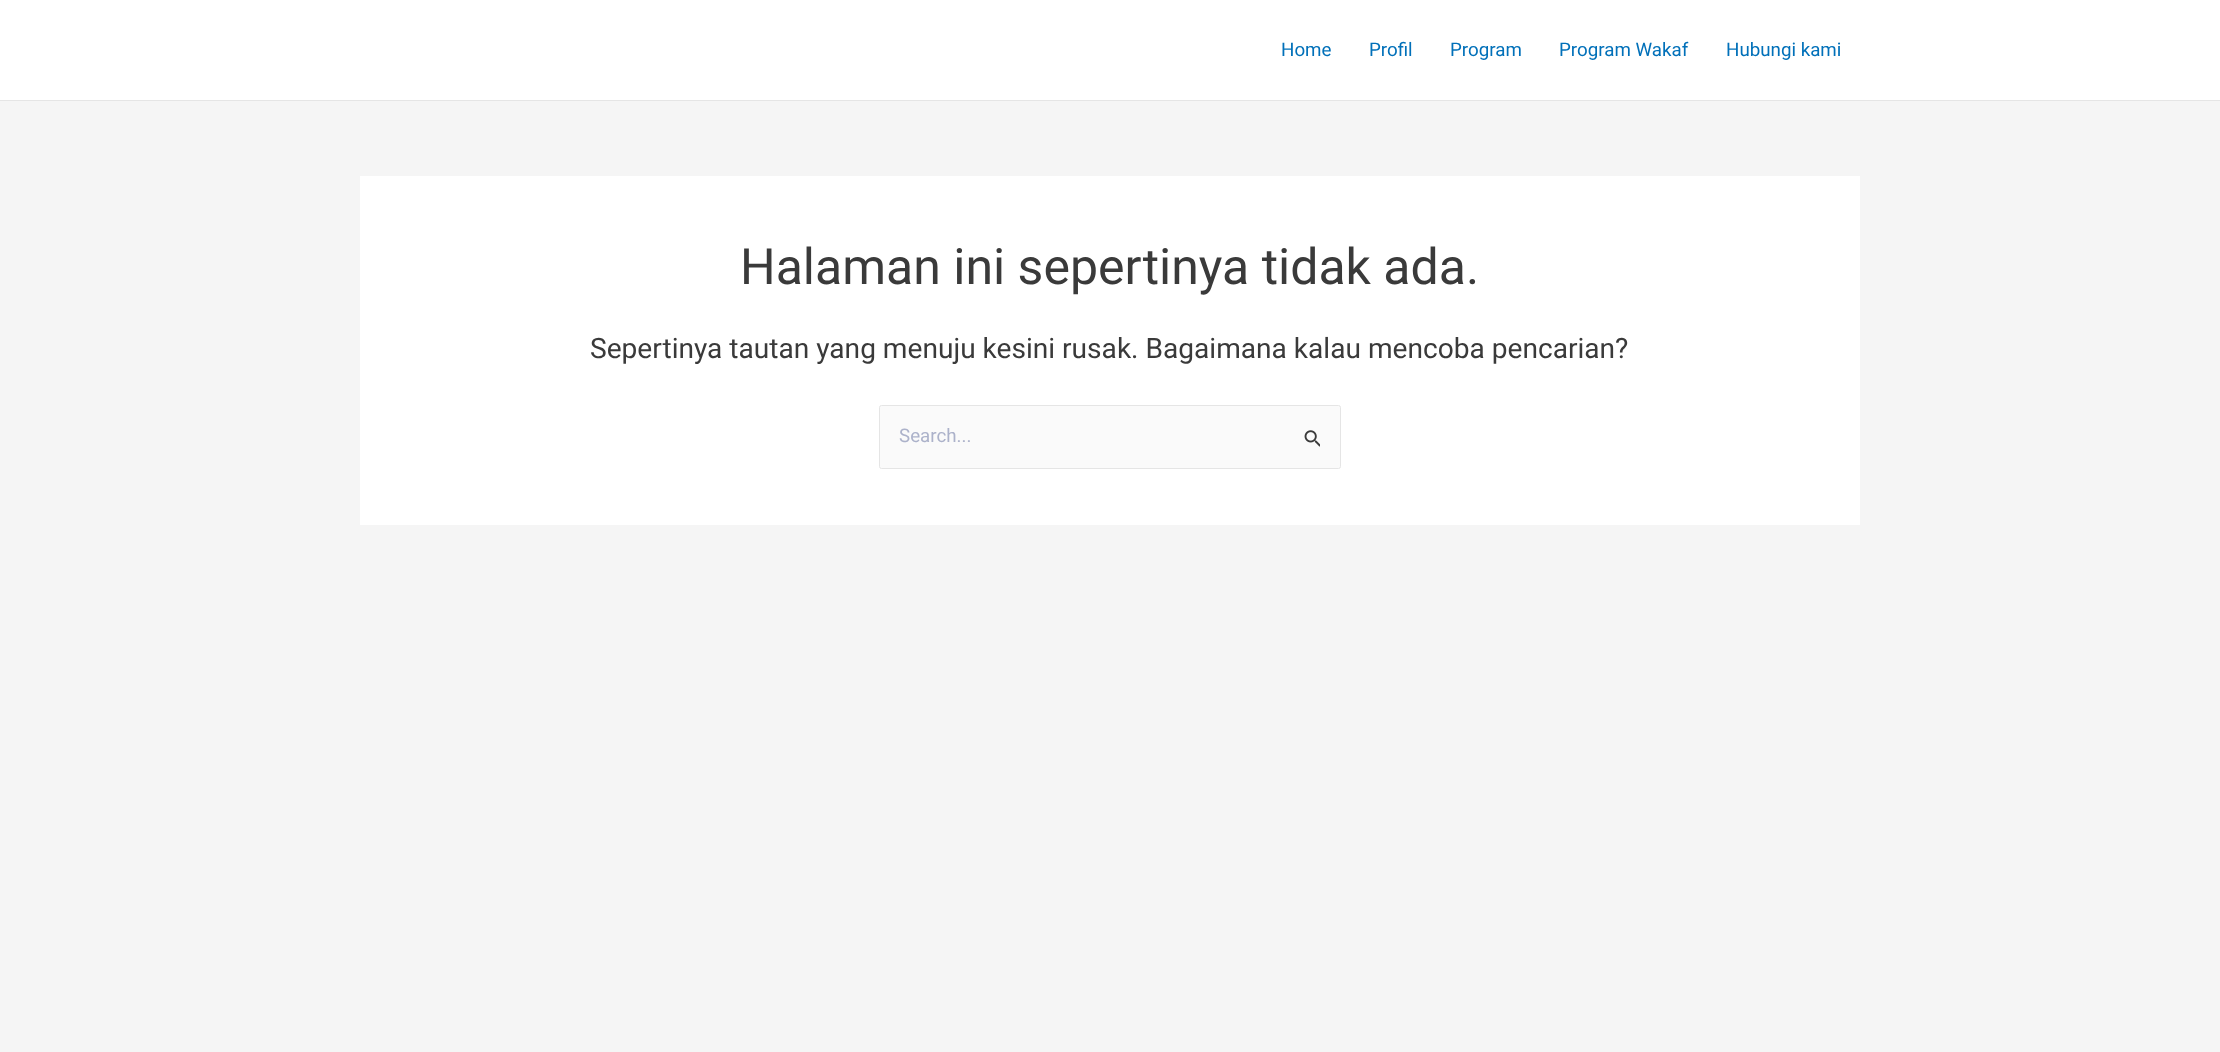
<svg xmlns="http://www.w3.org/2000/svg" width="2220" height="1052">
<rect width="100%" height="100%" fill="#f5f5f5"/>
<rect width="2220" height="100" fill="#fff"/>
<rect y="100" width="2220" height="1" fill="#e5e5e5"/>
<text x="1281" y="56" style="font-family:Roboto;font-size:18.75px;fill:#0170b9">Home</text>
<text x="1369" y="56" style="font-family:Roboto;font-size:18.75px;fill:#0170b9">Profil</text>
<text x="1450" y="56" style="font-family:Roboto;font-size:18.75px;fill:#0170b9">Program</text>
<text x="1559" y="56" style="font-family:Roboto;font-size:18.75px;fill:#0170b9">Program Wakaf</text>
<text x="1726" y="56" style="font-family:Roboto;font-size:18.75px;fill:#0170b9">Hubungi kami</text>
<rect x="360" y="176" width="1500" height="349" fill="#fff"/>
<text x="740" y="284" style="font-family:Roboto;font-size:50px;fill:#3a3a3a">Halaman ini sepertinya tidak ada.</text>
<text x="590" y="358" style="font-family:Roboto;font-size:28.1px;fill:#3a3a3a">Sepertinya tautan yang menuju kesini rusak. Bagaimana kalau mencoba pencarian?</text>
<rect x="879.5" y="405.5" width="461" height="63" rx="2" fill="#fafafa" stroke="#e5e5e5"/>
<text x="899" y="442" style="font-family:Roboto;font-size:18.75px;fill:#acb2ca">Search...</text>
<image x="1304" y="430" width="16" height="17" href="media/1.png"/>
</svg>
